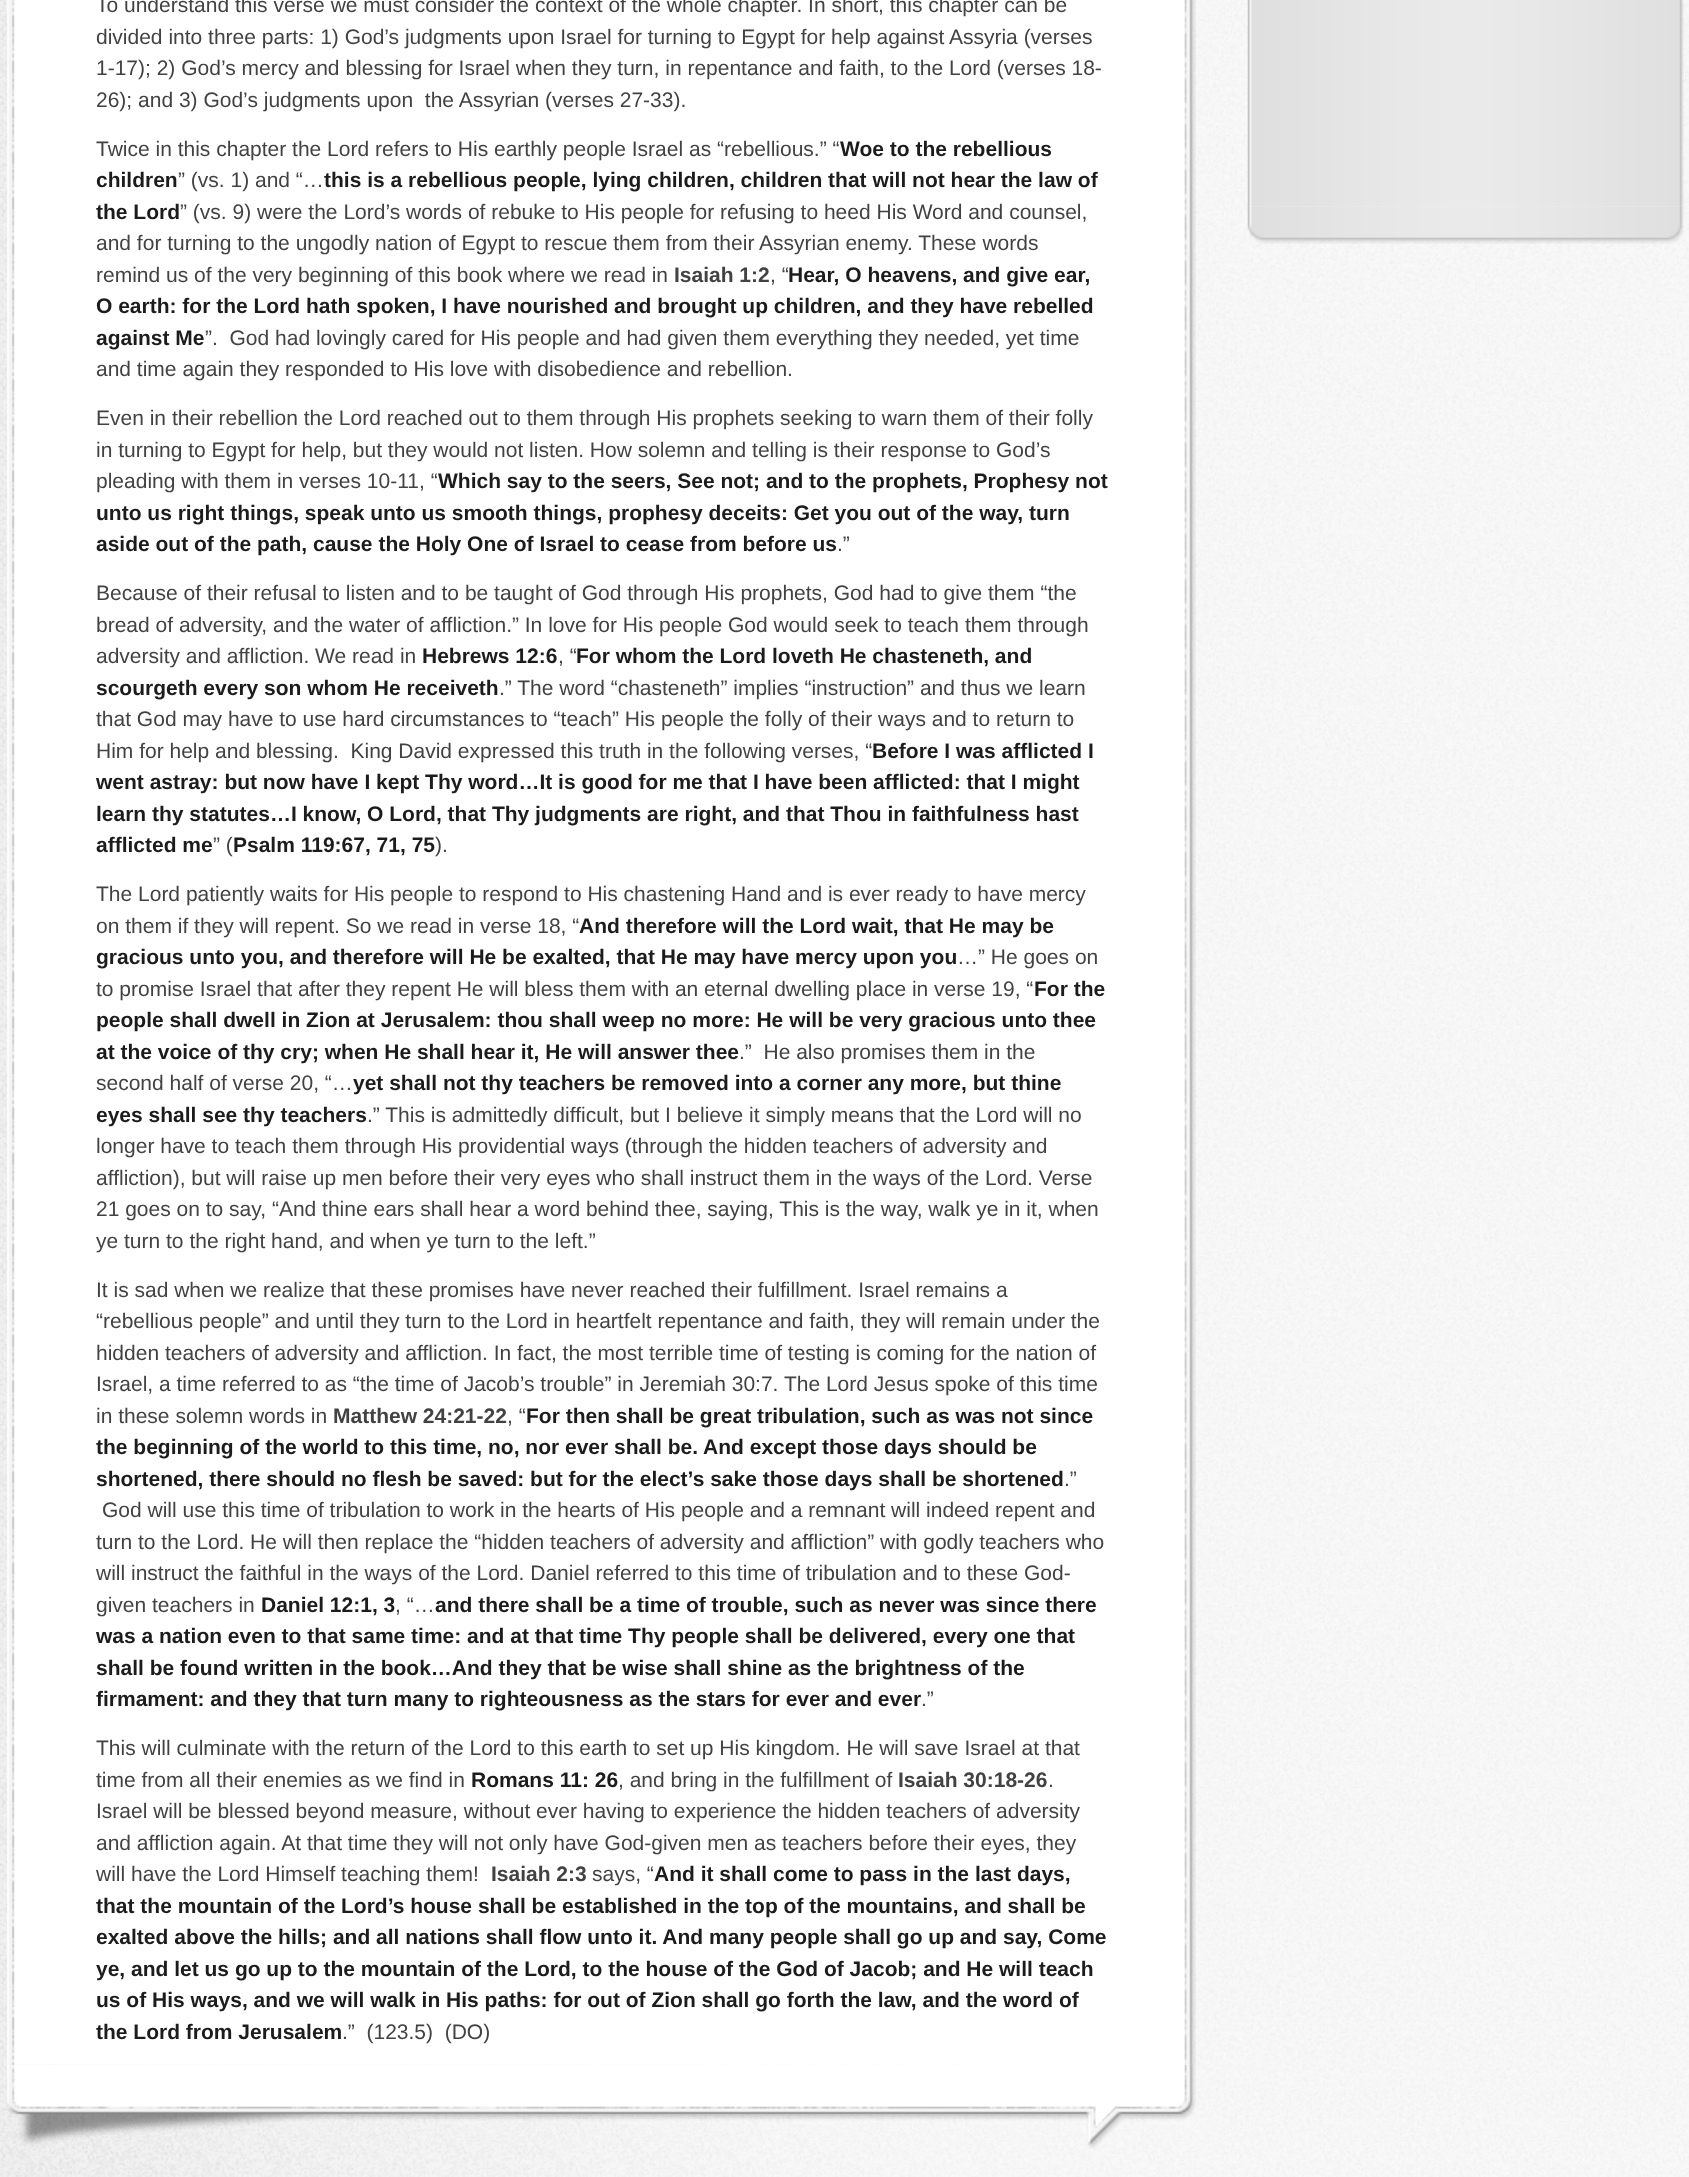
<svg xmlns="http://www.w3.org/2000/svg" width="1689" height="2177">
<rect width="100%" height="100%" fill="#fff"/>
<image x="0" y="0" width="1689" height="2177" href="media/1.png"/>
<image x="0" y="0" width="1689" height="2177" href="media/2.png"/>
<image x="6" y="2064" width="1190" height="85" href="media/3.png"/>
<image x="7" y="0" width="1189" height="2065" href="media/4.png"/>
<text x="96" y="12" style="font-family:Liberation Sans;font-size:21px;fill:#424242">To understand this verse we must consider the context of the whole chapter. In short, this chapter can be</text>
<text x="96" y="44" style="font-family:Liberation Sans;font-size:21px;fill:#424242">divided into three parts: 1) God’s judgments upon Israel for turning to Egypt for help against Assyria (verses</text>
<text x="96" y="75" style="font-family:Liberation Sans;font-size:21px;fill:#424242">1-17); 2) God’s mercy and blessing for Israel when they turn, in repentance and faith, to the Lord (verses 18-</text>
<text x="96" y="107" style="font-family:Liberation Sans;font-size:21px;fill:#424242" xml:space="preserve">26); and 3) God’s judgments upon  the Assyrian (verses 27-33).</text>
<text x="96" y="156" style="font-family:Liberation Sans;font-size:21px;fill:#424242">Twice in this chapter the Lord refers to His earthly people Israel as “rebellious.” “</text>
<text x="840" y="156" style="font-family:Liberation Sans;font-size:21px;font-weight:bold;fill:#1c1c1c">Woe to the rebellious</text>
<text x="96" y="187" style="font-family:Liberation Sans;font-size:21px;font-weight:bold;fill:#1c1c1c">children</text>
<text x="178" y="187" style="font-family:Liberation Sans;font-size:21px;fill:#424242">” (vs. 1) and “…</text>
<text x="324" y="187" style="font-family:Liberation Sans;font-size:21px;font-weight:bold;fill:#1c1c1c">this is a rebellious people, lying children, children that will not hear the law of</text>
<text x="96" y="219" style="font-family:Liberation Sans;font-size:21px;font-weight:bold;fill:#1c1c1c">the Lord</text>
<text x="180" y="219" style="font-family:Liberation Sans;font-size:21px;fill:#424242">” (vs. 9) were the Lord’s words of rebuke to His people for refusing to heed His Word and counsel,</text>
<text x="96" y="250" style="font-family:Liberation Sans;font-size:21px;fill:#424242">and for turning to the ungodly nation of Egypt to rescue them from their Assyrian enemy. These words</text>
<text x="96" y="282" style="font-family:Liberation Sans;font-size:21px;fill:#424242">remind us of the very beginning of this book where we read in</text>
<text x="674" y="282" style="font-family:Liberation Sans;font-size:21px;font-weight:bold;fill:#424242">Isaiah 1:2</text>
<text x="770" y="282" style="font-family:Liberation Sans;font-size:21px;fill:#424242">, “</text>
<text x="788" y="282" style="font-family:Liberation Sans;font-size:21px;font-weight:bold;fill:#1c1c1c">Hear, O heavens, and give ear,</text>
<text x="96" y="313" style="font-family:Liberation Sans;font-size:21px;font-weight:bold;fill:#1c1c1c">O earth: for the Lord hath spoken, I have nourished and brought up children, and they have rebelled</text>
<text x="96" y="345" style="font-family:Liberation Sans;font-size:21px;font-weight:bold;fill:#1c1c1c">against Me</text>
<text x="205" y="345" style="font-family:Liberation Sans;font-size:21px;fill:#424242" xml:space="preserve">”.  God had lovingly cared for His people and had given them everything they needed, yet time</text>
<text x="96" y="376" style="font-family:Liberation Sans;font-size:21px;fill:#424242">and time again they responded to His love with disobedience and rebellion.</text>
<text x="96" y="425" style="font-family:Liberation Sans;font-size:21px;fill:#424242">Even in their rebellion the Lord reached out to them through His prophets seeking to warn them of their folly</text>
<text x="96" y="457" style="font-family:Liberation Sans;font-size:21px;fill:#424242">in turning to Egypt for help, but they would not listen. How solemn and telling is their response to God’s</text>
<text x="96" y="488" style="font-family:Liberation Sans;font-size:21px;fill:#424242">pleading with them in verses 10-11, “</text>
<text x="438" y="488" style="font-family:Liberation Sans;font-size:21px;font-weight:bold;fill:#1c1c1c">Which say to the seers, See not; and to the prophets, Prophesy not</text>
<text x="96" y="520" style="font-family:Liberation Sans;font-size:21px;font-weight:bold;fill:#1c1c1c">unto us right things, speak unto us smooth things, prophesy deceits: Get you out of the way, turn</text>
<text x="96" y="551" style="font-family:Liberation Sans;font-size:21px;font-weight:bold;fill:#1c1c1c">aside out of the path, cause the Holy One of Israel to cease from before us</text>
<text x="837" y="551" style="font-family:Liberation Sans;font-size:21px;fill:#424242">.”</text>
<text x="96" y="600" style="font-family:Liberation Sans;font-size:21px;fill:#424242">Because of their refusal to listen and to be taught of God through His prophets, God had to give them “the</text>
<text x="96" y="632" style="font-family:Liberation Sans;font-size:21px;fill:#424242">bread of adversity, and the water of affliction.” In love for His people God would seek to teach them through</text>
<text x="96" y="663" style="font-family:Liberation Sans;font-size:21px;fill:#424242">adversity and affliction. We read in</text>
<text x="422" y="663" style="font-family:Liberation Sans;font-size:21px;font-weight:bold;fill:#1c1c1c">Hebrews 12:6</text>
<text x="558" y="663" style="font-family:Liberation Sans;font-size:21px;fill:#424242">, “</text>
<text x="576" y="663" style="font-family:Liberation Sans;font-size:21px;font-weight:bold;fill:#1c1c1c">For whom the Lord loveth He chasteneth, and</text>
<text x="96" y="695" style="font-family:Liberation Sans;font-size:21px;font-weight:bold;fill:#1c1c1c">scourgeth every son whom He receiveth</text>
<text x="499" y="695" style="font-family:Liberation Sans;font-size:21px;fill:#424242">.” The word “chasteneth” implies “instruction” and thus we learn</text>
<text x="96" y="726" style="font-family:Liberation Sans;font-size:21px;fill:#424242">that God may have to use hard circumstances to “teach” His people the folly of their ways and to return to</text>
<text x="96" y="758" style="font-family:Liberation Sans;font-size:21px;fill:#424242" xml:space="preserve">Him for help and blessing.  King David expressed this truth in the following verses, “</text>
<text x="872" y="758" style="font-family:Liberation Sans;font-size:21px;font-weight:bold;fill:#1c1c1c">Before I was afflicted I</text>
<text x="96" y="789" style="font-family:Liberation Sans;font-size:21px;font-weight:bold;fill:#1c1c1c">went astray: but now have I kept Thy word…It is good for me that I have been afflicted: that I might</text>
<text x="96" y="821" style="font-family:Liberation Sans;font-size:21px;font-weight:bold;fill:#1c1c1c">learn thy statutes…I know, O Lord, that Thy judgments are right, and that Thou in faithfulness hast</text>
<text x="96" y="852" style="font-family:Liberation Sans;font-size:21px;font-weight:bold;fill:#1c1c1c">afflicted me</text>
<text x="213" y="852" style="font-family:Liberation Sans;font-size:21px;fill:#424242">” (</text>
<text x="233" y="852" style="font-family:Liberation Sans;font-size:21px;font-weight:bold;fill:#1c1c1c">Psalm 119:67, 71, 75</text>
<text x="435" y="852" style="font-family:Liberation Sans;font-size:21px;fill:#424242">).</text>
<text x="96" y="901" style="font-family:Liberation Sans;font-size:21px;fill:#424242">The Lord patiently waits for His people to respond to His chastening Hand and is ever ready to have mercy</text>
<text x="96" y="933" style="font-family:Liberation Sans;font-size:21px;fill:#424242">on them if they will repent. So we read in verse 18, “</text>
<text x="579" y="933" style="font-family:Liberation Sans;font-size:21px;font-weight:bold;fill:#1c1c1c">And therefore will the Lord wait, that He may be</text>
<text x="96" y="964" style="font-family:Liberation Sans;font-size:21px;font-weight:bold;fill:#1c1c1c">gracious unto you, and therefore will He be exalted, that He may have mercy upon you</text>
<text x="957" y="964" style="font-family:Liberation Sans;font-size:21px;fill:#424242">…” He goes on</text>
<text x="96" y="996" style="font-family:Liberation Sans;font-size:21px;fill:#424242">to promise Israel that after they repent He will bless them with an eternal dwelling place in verse 19, “</text>
<text x="1034" y="996" style="font-family:Liberation Sans;font-size:21px;font-weight:bold;fill:#1c1c1c">For the</text>
<text x="96" y="1027" style="font-family:Liberation Sans;font-size:21px;font-weight:bold;fill:#1c1c1c">people shall dwell in Zion at Jerusalem: thou shall weep no more: He will be very gracious unto thee</text>
<text x="96" y="1059" style="font-family:Liberation Sans;font-size:21px;font-weight:bold;fill:#1c1c1c">at the voice of thy cry; when He shall hear it, He will answer thee</text>
<text x="739" y="1059" style="font-family:Liberation Sans;font-size:21px;fill:#424242" xml:space="preserve">.”  He also promises them in the</text>
<text x="96" y="1090" style="font-family:Liberation Sans;font-size:21px;fill:#424242">second half of verse 20, “…</text>
<text x="353" y="1090" style="font-family:Liberation Sans;font-size:21px;font-weight:bold;fill:#1c1c1c">yet shall not thy teachers be removed into a corner any more, but thine</text>
<text x="96" y="1122" style="font-family:Liberation Sans;font-size:21px;font-weight:bold;fill:#1c1c1c">eyes shall see thy teachers</text>
<text x="367" y="1122" style="font-family:Liberation Sans;font-size:21px;fill:#424242">.” This is admittedly difficult, but I believe it simply means that the Lord will no</text>
<text x="96" y="1153" style="font-family:Liberation Sans;font-size:21px;fill:#424242">longer have to teach them through His providential ways (through the hidden teachers of adversity and</text>
<text x="96" y="1185" style="font-family:Liberation Sans;font-size:21px;fill:#424242">affliction), but will raise up men before their very eyes who shall instruct them in the ways of the Lord. Verse</text>
<text x="96" y="1216" style="font-family:Liberation Sans;font-size:21px;fill:#424242">21 goes on to say, “And thine ears shall hear a word behind thee, saying, This is the way, walk ye in it, when</text>
<text x="96" y="1248" style="font-family:Liberation Sans;font-size:21px;fill:#424242">ye turn to the right hand, and when ye turn to the left.”</text>
<text x="96" y="1297" style="font-family:Liberation Sans;font-size:21px;fill:#424242">It is sad when we realize that these promises have never reached their fulfillment. Israel remains a</text>
<text x="96" y="1328" style="font-family:Liberation Sans;font-size:21px;fill:#424242">“rebellious people” and until they turn to the Lord in heartfelt repentance and faith, they will remain under the</text>
<text x="96" y="1360" style="font-family:Liberation Sans;font-size:21px;fill:#424242">hidden teachers of adversity and affliction. In fact, the most terrible time of testing is coming for the nation of</text>
<text x="96" y="1391" style="font-family:Liberation Sans;font-size:21px;fill:#424242">Israel, a time referred to as “the time of Jacob’s trouble” in Jeremiah 30:7. The Lord Jesus spoke of this time</text>
<text x="96" y="1423" style="font-family:Liberation Sans;font-size:21px;fill:#424242">in these solemn words in</text>
<text x="333" y="1423" style="font-family:Liberation Sans;font-size:21px;font-weight:bold;fill:#424242">Matthew 24:21-22</text>
<text x="507" y="1423" style="font-family:Liberation Sans;font-size:21px;fill:#424242">, “</text>
<text x="526" y="1423" style="font-family:Liberation Sans;font-size:21px;font-weight:bold;fill:#1c1c1c">For then shall be great tribulation, such as was not since</text>
<text x="96" y="1454" style="font-family:Liberation Sans;font-size:21px;font-weight:bold;fill:#1c1c1c">the beginning of the world to this time, no, nor ever shall be. And except those days should be</text>
<text x="96" y="1486" style="font-family:Liberation Sans;font-size:21px;font-weight:bold;fill:#1c1c1c">shortened, there should no flesh be saved: but for the elect’s sake those days shall be shortened</text>
<text x="1064" y="1486" style="font-family:Liberation Sans;font-size:21px;fill:#424242">.”</text>
<text x="102" y="1517" style="font-family:Liberation Sans;font-size:21px;fill:#424242">God will use this time of tribulation to work in the hearts of His people and a remnant will indeed repent and</text>
<text x="96" y="1549" style="font-family:Liberation Sans;font-size:21px;fill:#424242">turn to the Lord. He will then replace the “hidden teachers of adversity and affliction” with godly teachers who</text>
<text x="96" y="1580" style="font-family:Liberation Sans;font-size:21px;fill:#424242">will instruct the faithful in the ways of the Lord. Daniel referred to this time of tribulation and to these God-</text>
<text x="96" y="1612" style="font-family:Liberation Sans;font-size:21px;fill:#424242">given teachers in</text>
<text x="261" y="1612" style="font-family:Liberation Sans;font-size:21px;font-weight:bold;fill:#1c1c1c">Daniel 12:1, 3</text>
<text x="395" y="1612" style="font-family:Liberation Sans;font-size:21px;fill:#424242">, “…</text>
<text x="435" y="1612" style="font-family:Liberation Sans;font-size:21px;font-weight:bold;fill:#1c1c1c">and there shall be a time of trouble, such as never was since there</text>
<text x="96" y="1643" style="font-family:Liberation Sans;font-size:21px;font-weight:bold;fill:#1c1c1c">was a nation even to that same time: and at that time Thy people shall be delivered, every one that</text>
<text x="96" y="1675" style="font-family:Liberation Sans;font-size:21px;font-weight:bold;fill:#1c1c1c">shall be found written in the book…And they that be wise shall shine as the brightness of the</text>
<text x="96" y="1706" style="font-family:Liberation Sans;font-size:21px;font-weight:bold;fill:#1c1c1c">firmament: and they that turn many to righteousness as the stars for ever and ever</text>
<text x="921" y="1706" style="font-family:Liberation Sans;font-size:21px;fill:#424242">.”</text>
<text x="96" y="1755" style="font-family:Liberation Sans;font-size:21px;fill:#424242">This will culminate with the return of the Lord to this earth to set up His kingdom. He will save Israel at that</text>
<text x="96" y="1787" style="font-family:Liberation Sans;font-size:21px;fill:#424242">time from all their enemies as we find in</text>
<text x="471" y="1787" style="font-family:Liberation Sans;font-size:21px;font-weight:bold;fill:#1c1c1c">Romans 11: 26</text>
<text x="618" y="1787" style="font-family:Liberation Sans;font-size:21px;fill:#424242">, and bring in the fulfillment of</text>
<text x="898" y="1787" style="font-family:Liberation Sans;font-size:21px;font-weight:bold;fill:#424242">Isaiah 30:18-26</text>
<text x="1048" y="1787" style="font-family:Liberation Sans;font-size:21px;fill:#424242">.</text>
<text x="96" y="1818" style="font-family:Liberation Sans;font-size:21px;fill:#424242">Israel will be blessed beyond measure, without ever having to experience the hidden teachers of adversity</text>
<text x="96" y="1850" style="font-family:Liberation Sans;font-size:21px;fill:#424242">and affliction again. At that time they will not only have God-given men as teachers before their eyes, they</text>
<text x="96" y="1881" style="font-family:Liberation Sans;font-size:21px;fill:#424242">will have the Lord Himself teaching them!</text>
<text x="491" y="1881" style="font-family:Liberation Sans;font-size:21px;font-weight:bold;fill:#424242">Isaiah 2:3</text>
<text x="592" y="1881" style="font-family:Liberation Sans;font-size:21px;fill:#424242">says, “</text>
<text x="654" y="1881" style="font-family:Liberation Sans;font-size:21px;font-weight:bold;fill:#1c1c1c">And it shall come to pass in the last days,</text>
<text x="96" y="1913" style="font-family:Liberation Sans;font-size:21px;font-weight:bold;fill:#1c1c1c">that the mountain of the Lord’s house shall be established in the top of the mountains, and shall be</text>
<text x="96" y="1944" style="font-family:Liberation Sans;font-size:21px;font-weight:bold;fill:#1c1c1c">exalted above the hills; and all nations shall flow unto it. And many people shall go up and say, Come</text>
<text x="96" y="1976" style="font-family:Liberation Sans;font-size:21px;font-weight:bold;fill:#1c1c1c">ye, and let us go up to the mountain of the Lord, to the house of the God of Jacob; and He will teach</text>
<text x="96" y="2007" style="font-family:Liberation Sans;font-size:21px;font-weight:bold;fill:#1c1c1c">us of His ways, and we will walk in His paths: for out of Zion shall go forth the law, and the word of</text>
<text x="96" y="2039" style="font-family:Liberation Sans;font-size:21px;font-weight:bold;fill:#1c1c1c">the Lord from Jerusalem</text>
<text x="342" y="2039" style="font-family:Liberation Sans;font-size:21px;fill:#424242" xml:space="preserve">.”  (123.5)  (DO)</text>
<image x="1247" y="206" width="437" height="38" href="media/5.png"/>
<image x="1247" y="0" width="437" height="207" href="media/6.png"/>
</svg>
